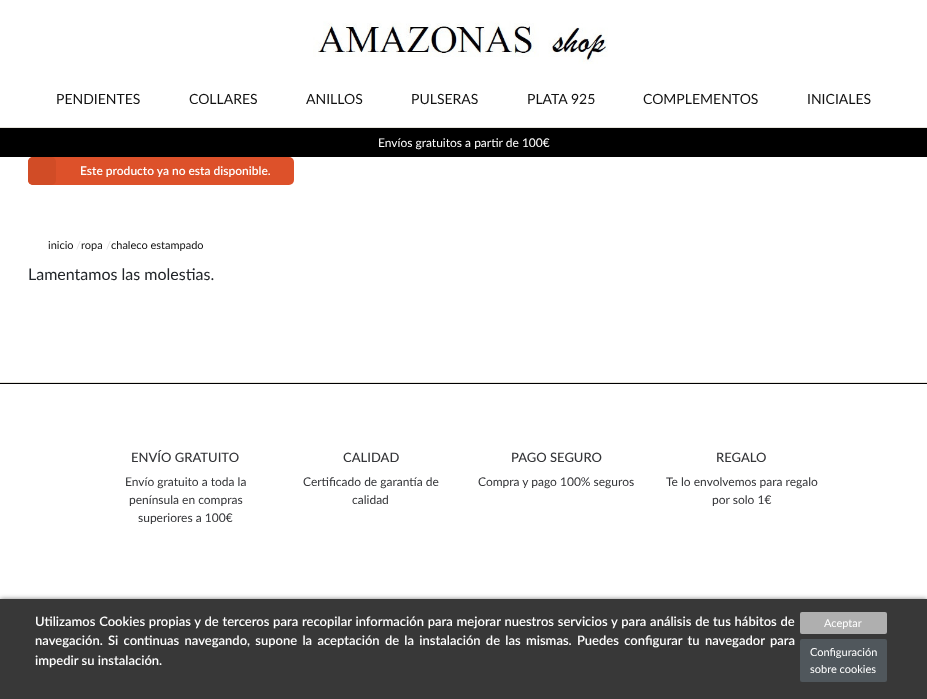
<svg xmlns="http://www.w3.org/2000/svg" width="927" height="699">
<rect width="100%" height="100%" fill="#fff"/>
<rect y="127" width="927" height="1" fill="#e6e4dd"/>
<image x="313" y="21" width="295" height="43" href="media/1.png"/>
<text x="56" y="104" style="font-family:Lato;font-size:14px;fill:#111">PENDIENTES</text>
<text x="189" y="104" style="font-family:Lato;font-size:14px;fill:#111">COLLARES</text>
<text x="306" y="104" style="font-family:Lato;font-size:14px;fill:#111">ANILLOS</text>
<text x="411" y="104" style="font-family:Lato;font-size:14px;fill:#111">PULSERAS</text>
<text x="527" y="104" style="font-family:Lato;font-size:14px;fill:#111">PLATA 925</text>
<text x="643" y="104" style="font-family:Lato;font-size:14px;fill:#111">COMPLEMENTOS</text>
<text x="807" y="104" style="font-family:Lato;font-size:14px;fill:#111">INICIALES</text>
<rect y="128" width="927" height="29" fill="#000"/>
<text x="378" y="147" style="font-family:Lato;font-size:12px;fill:#fff">Envíos gratuitos a partir de 100€</text>
<rect x="28" y="157" width="266" height="28" rx="5" fill="#dd512a"/>
<rect x="28" y="157" width="28" height="28" rx="5" fill="#d14c26"/>
<text x="80" y="175" style="font-family:Lato;font-size:12px;font-weight:600;fill:#fff">Este producto ya no esta disponible.</text>
<text x="48" y="249" style="font-family:Lato;font-size:11px;fill:#111">inicio</text>
<text x="76" y="249" style="font-family:Lato;font-size:11px;fill:#dedede">/</text>
<text x="81" y="249" style="font-family:Lato;font-size:11px;fill:#111">ropa</text>
<text x="106" y="249" style="font-family:Lato;font-size:11px;fill:#dedede">/</text>
<text x="111" y="249" style="font-family:Lato;font-size:11px;fill:#111">chaleco estampado</text>
<text x="28" y="280" style="font-family:Lato;font-size:16px;fill:#212529">Lamentamos las molestias.</text>
<rect y="382" width="927" height="1" fill="#e6e4dd"/>
<rect y="383" width="927" height="1" fill="#000"/>
<text x="131" y="462" style="font-family:Lato;font-size:13px;font-weight:500;fill:#343538">ENVÍO GRATUITO</text>
<text x="125" y="486" style="font-family:Lato;font-size:12px;fill:#343538">Envío gratuito a toda la</text>
<text x="129" y="504" style="font-family:Lato;font-size:12px;fill:#343538">península en compras</text>
<text x="138" y="522" style="font-family:Lato;font-size:12px;fill:#343538">superiores a 100€</text>
<text x="343" y="462" style="font-family:Lato;font-size:13px;font-weight:500;fill:#343538">CALIDAD</text>
<text x="303" y="486" style="font-family:Lato;font-size:12px;fill:#343538">Certificado de garantía de</text>
<text x="352" y="504" style="font-family:Lato;font-size:12px;fill:#343538">calidad</text>
<text x="511" y="462" style="font-family:Lato;font-size:13px;font-weight:500;fill:#343538">PAGO SEGURO</text>
<text x="478" y="486" style="font-family:Lato;font-size:12px;fill:#343538">Compra y pago 100% seguros</text>
<text x="716" y="462" style="font-family:Lato;font-size:13px;font-weight:500;fill:#343538">REGALO</text>
<text x="666" y="486" style="font-family:Lato;font-size:12px;fill:#343538">Te lo envolvemos para regalo</text>
<text x="712" y="504" style="font-family:Lato;font-size:12px;fill:#343538">por solo 1€</text>
<rect y="599" width="927" height="100" fill="#00000080" filter="blur(2.5px)"/>
<rect y="599" width="927" height="100" fill="#383838"/>
<text x="35" y="626" word-spacing="0.5" style="font-family:Lato;font-size:13px;font-weight:600;fill:#fff">Utilizamos Cookies propias y de terceros para recopilar información para mejorar nuestros servicios y para análisis de tus hábitos de</text>
<text x="35" y="645" word-spacing="2" style="font-family:Lato;font-size:13px;font-weight:600;fill:#fff">navegación. Si continuas navegando, supone la aceptación de la instalación de las mismas. Puedes configurar tu navegador para</text>
<text x="35" y="665" style="font-family:Lato;font-size:13px;font-weight:600;fill:#fff">impedir su instalación.</text>
<rect x="800" y="612" width="87" height="22" rx="2" fill="#afafaf"/>
<text x="824" y="627" style="font-family:Lato;font-size:11px;fill:#fff">Aceptar</text>
<rect x="800" y="639" width="87" height="43" rx="2" fill="#50575c"/>
<text x="810" y="656" style="font-family:Lato;font-size:11px;fill:#fff">Configuración</text>
<text x="810" y="673" style="font-family:Lato;font-size:11px;fill:#fff">sobre cookies</text>
</svg>
